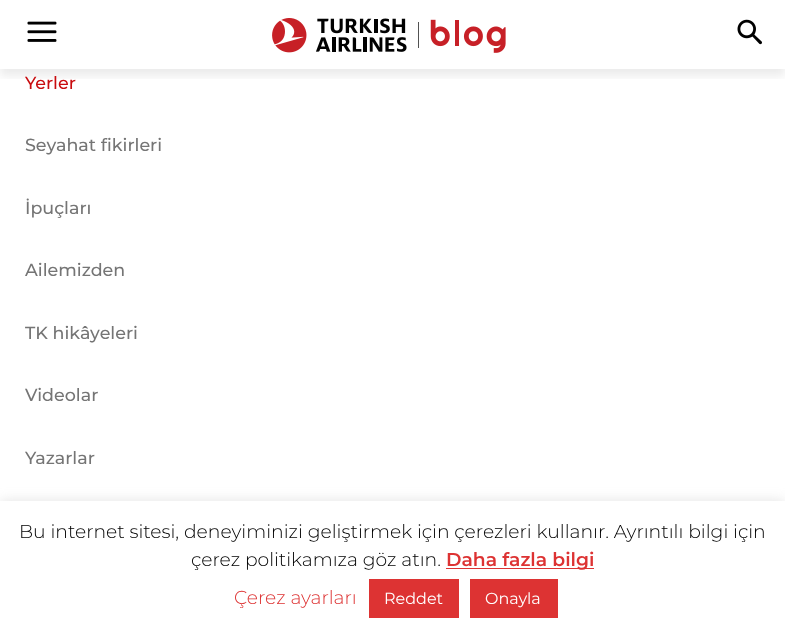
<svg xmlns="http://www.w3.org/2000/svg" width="785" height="632">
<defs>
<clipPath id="clip1"><rect x="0" y="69" width="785" height="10"/></clipPath>
</defs>
<rect width="100%" height="100%" fill="#fff"/>
<image x="27" y="21" width="30" height="21" href="media/1.png"/>
<image x="272" y="18" width="234" height="35" href="media/2.png"/>
<image x="737" y="19" width="25" height="26" href="media/3.png"/>
<g clip-path="url(#clip1)">
<rect y="8" width="785" height="68" fill="#00000014" filter="blur(5px)"/>
</g>
<text x="25" y="89" style="font-family:Montserrat;font-size:17.5px;font-weight:500;fill:#c90c0f">Yerler</text>
<text x="25" y="151" style="font-family:Montserrat;font-size:17.5px;font-weight:500;fill:#757575">Seyahat fikirleri</text>
<text x="25" y="214" style="font-family:Montserrat;font-size:17.5px;font-weight:500;fill:#757575">İpuçları</text>
<text x="25" y="276" style="font-family:Montserrat;font-size:17.5px;font-weight:500;fill:#757575">Ailemizden</text>
<text x="25" y="339" style="font-family:Montserrat;font-size:17.5px;font-weight:500;fill:#757575">TK hikâyeleri</text>
<text x="25" y="401" style="font-family:Montserrat;font-size:17.5px;font-weight:500;fill:#757575">Videolar</text>
<text x="25" y="464" style="font-family:Montserrat;font-size:17.5px;font-weight:500;fill:#757575">Yazarlar</text>
<rect y="500" width="785" height="131" fill="#acabab4d" filter="blur(6px)"/>
<rect y="501" width="785" height="131" fill="#fff"/>
<text x="19" y="538" style="font-family:Montserrat;font-size:18.75px;font-weight:300;fill:#000">Bu internet sitesi, deneyiminizi geliştirmek için çerezleri kullanır. Ayrıntılı bilgi için</text>
<text x="191" y="566" style="font-family:Montserrat;font-size:18.75px;font-weight:300;fill:#000">çerez politikamıza göz atın.</text>
<rect x="446" y="568" width="148" height="1" fill="#d33"/>
<text x="446" y="566" style="font-family:Montserrat;font-size:18.75px;font-weight:600;fill:#d33">Daha fazla bilgi</text>
<text x="234" y="604" style="font-family:Montserrat;font-size:18.75px;font-weight:300;fill:#d33">Çerez ayarları</text>
<rect x="369" y="579" width="90" height="39" fill="#d33"/>
<text x="384" y="604" style="font-family:Montserrat;font-size:16px;fill:#fff">Reddet</text>
<rect x="470" y="579" width="88" height="39" fill="#d33"/>
<text x="485" y="604" style="font-family:Montserrat;font-size:16px;fill:#fff">Onayla</text>
</svg>
